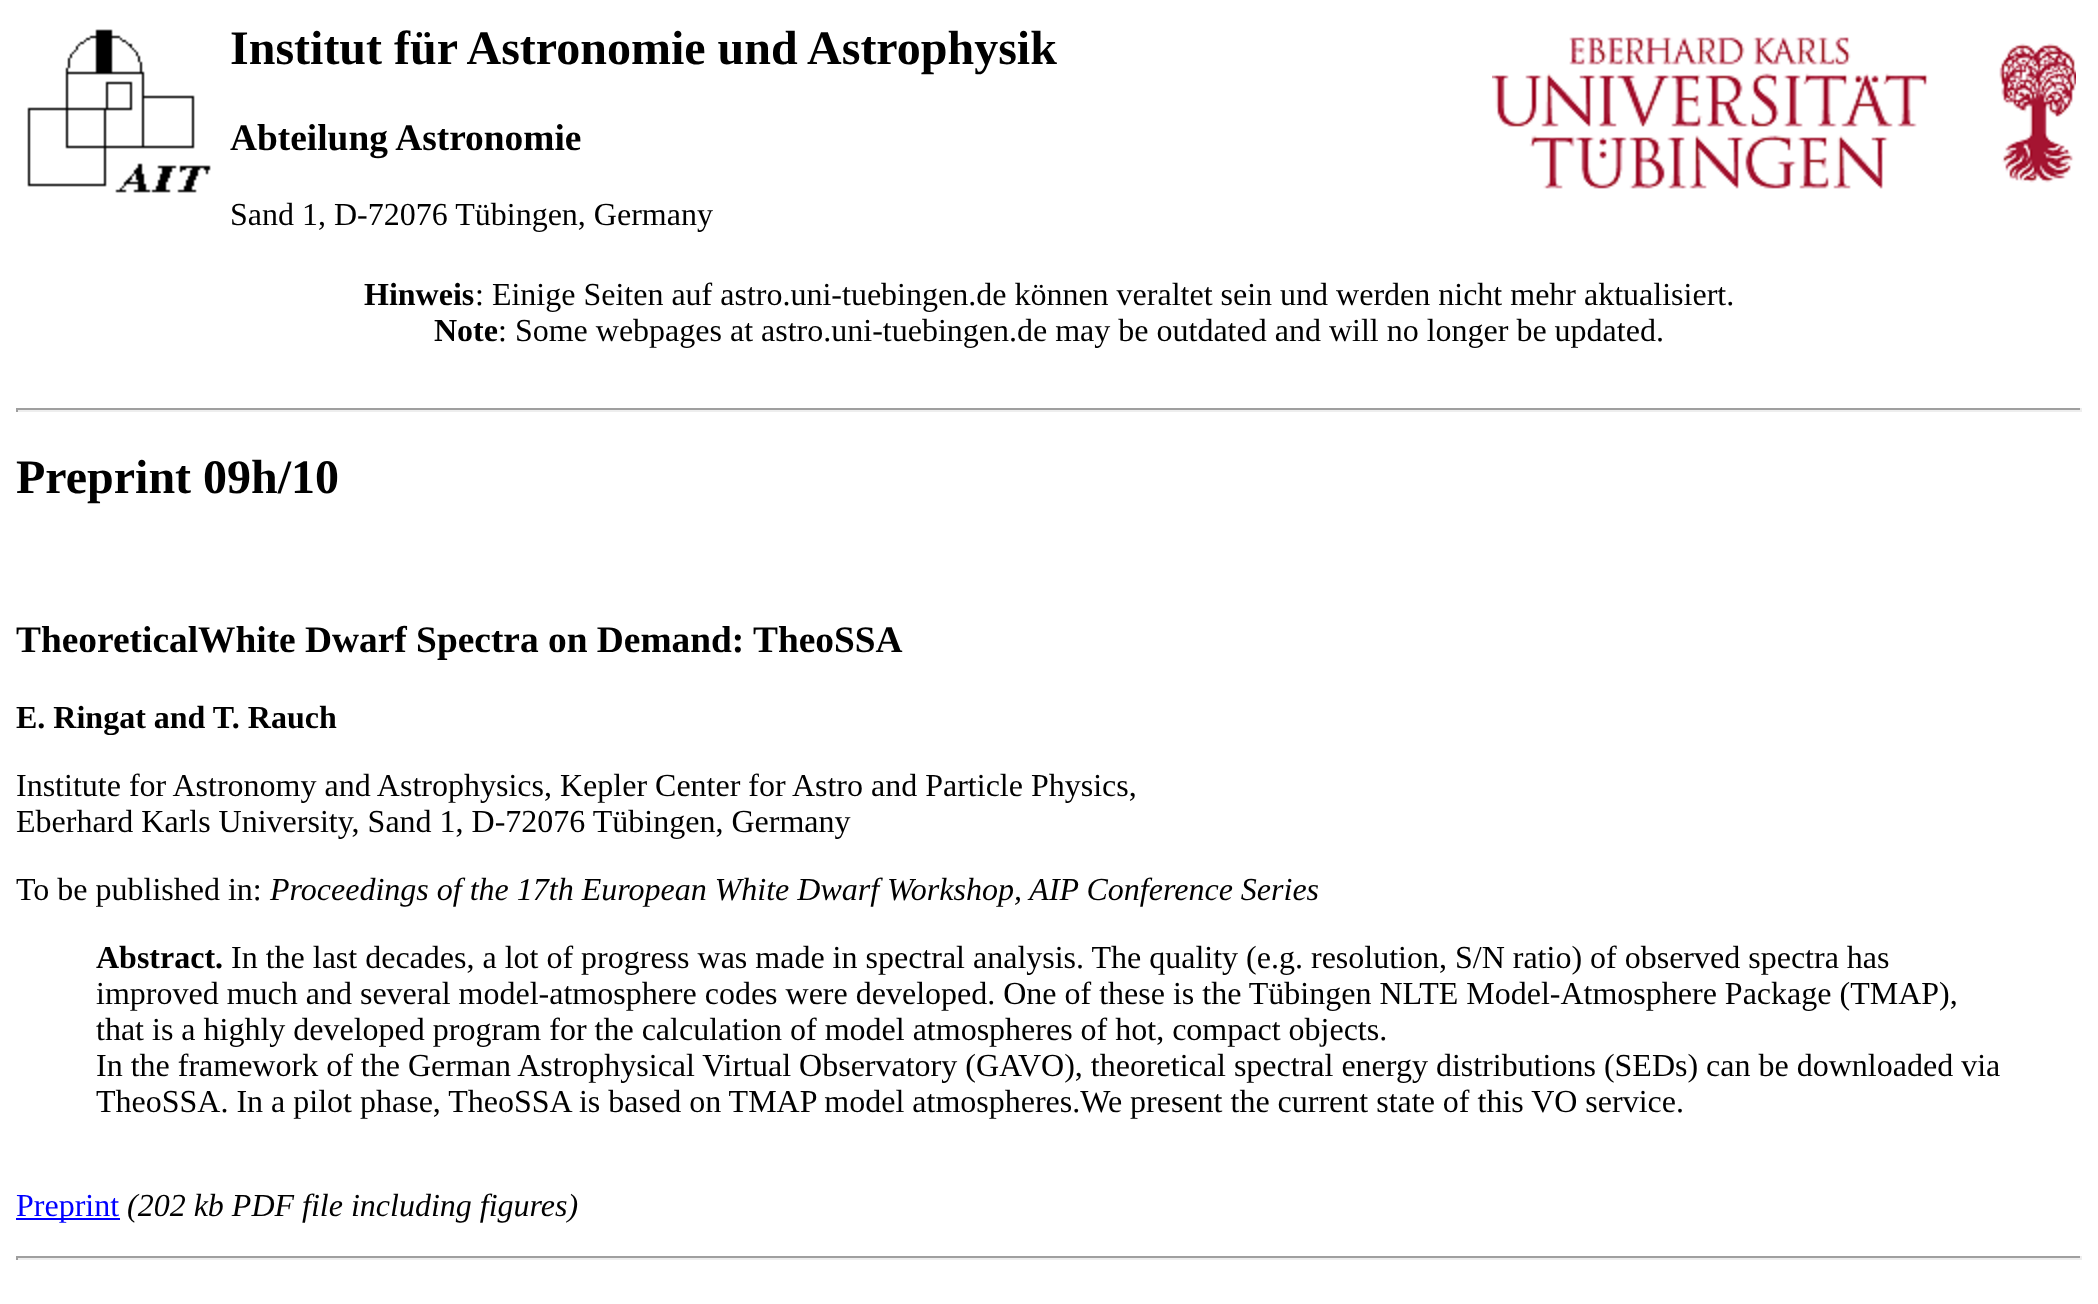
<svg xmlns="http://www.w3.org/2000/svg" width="2098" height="1304">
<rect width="100%" height="100%" fill="#fff"/>
<image x="27" y="29" width="184" height="164" href="media/1.png"/>
<text x="230" y="64" style="font-family:Liberation Serif;font-size:48px;font-weight:bold;fill:#000">Institut für Astronomie und Astrophysik</text>
<text x="230" y="150" style="font-family:Liberation Serif;font-size:37.4px;font-weight:bold;fill:#000">Abteilung Astronomie</text>
<text x="230" y="225" style="font-family:Liberation Serif;font-size:32px;fill:#000">Sand 1, D-72076 Tübingen, Germany</text>
<image x="1492" y="37" width="584" height="152" href="media/2.png"/>
<text x="364" y="305" style="font-family:Liberation Serif;font-size:32px;font-weight:bold;fill:#000">Hinweis</text>
<text x="475" y="305" style="font-family:Liberation Serif;font-size:32px;fill:#000">: Einige Seiten auf astro.uni-tuebingen.de können veraltet sein und werden nicht mehr aktualisiert.</text>
<text x="434" y="341" style="font-family:Liberation Serif;font-size:32px;font-weight:bold;fill:#000">Note</text>
<text x="498" y="341" style="font-family:Liberation Serif;font-size:32px;fill:#000">: Some webpages at astro.uni-tuebingen.de may be outdated and will no longer be updated.</text>
<rect x="16" y="408" width="2066" height="2" fill="#9f9f9f"/>
<rect x="2080" y="408" width="2" height="4" fill="#eee"/>
<rect x="16" y="410" width="2066" height="2" fill="#eee"/>
<rect x="16" y="408" width="2" height="4" fill="#9f9f9f"/>
<text x="16" y="493" style="font-family:Liberation Serif;font-size:48px;font-weight:bold;fill:#000">Preprint 09h/10</text>
<text x="16" y="652" style="font-family:Liberation Serif;font-size:37.4px;font-weight:bold;fill:#000">TheoreticalWhite Dwarf Spectra on Demand: TheoSSA</text>
<text x="16" y="728" style="font-family:Liberation Serif;font-size:32px;font-weight:bold;fill:#000">E. Ringat and T. Rauch</text>
<text x="16" y="796" style="font-family:Liberation Serif;font-size:32px;fill:#000">Institute for Astronomy and Astrophysics, Kepler Center for Astro and Particle Physics,</text>
<text x="16" y="832" style="font-family:Liberation Serif;font-size:32px;fill:#000">Eberhard Karls University, Sand 1, D-72076 Tübingen, Germany</text>
<text x="16" y="900" style="font-family:Liberation Serif;font-size:32px;fill:#000">To be published in:</text>
<text x="270" y="900" style="font-family:Liberation Serif;font-size:32px;font-style:italic;fill:#000">Proceedings of the 17th European White Dwarf Workshop, AIP Conference Series</text>
<text x="96" y="968" style="font-family:Liberation Serif;font-size:32px;font-weight:bold;fill:#000">Abstract.</text>
<text x="231" y="968" style="font-family:Liberation Serif;font-size:32px;fill:#000">In the last decades, a lot of progress was made in spectral analysis. The quality (e.g. resolution, S/N ratio) of observed spectra has</text>
<text x="96" y="1004" style="font-family:Liberation Serif;font-size:32px;fill:#000">improved much and several model-atmosphere codes were developed. One of these is the Tübingen NLTE Model-Atmosphere Package (TMAP),</text>
<text x="96" y="1040" style="font-family:Liberation Serif;font-size:32px;fill:#000">that is a highly developed program for the calculation of model atmospheres of hot, compact objects.</text>
<text x="96" y="1076" style="font-family:Liberation Serif;font-size:32px;fill:#000">In the framework of the German Astrophysical Virtual Observatory (GAVO), theoretical spectral energy distributions (SEDs) can be downloaded via</text>
<text x="96" y="1112" style="font-family:Liberation Serif;font-size:32px;fill:#000">TheoSSA. In a pilot phase, TheoSSA is based on TMAP model atmospheres.We present the current state of this VO service.</text>
<rect x="16" y="1218" width="104" height="2" fill="#00f"/>
<text x="16" y="1216" style="font-family:Liberation Serif;font-size:32px;fill:#00f">Preprint</text>
<text x="127" y="1216" style="font-family:Liberation Serif;font-size:32px;font-style:italic;fill:#000">(202 kb PDF file including figures)</text>
<rect x="16" y="1256" width="2066" height="2" fill="#9f9f9f"/>
<rect x="2080" y="1256" width="2" height="4" fill="#eee"/>
<rect x="16" y="1258" width="2066" height="2" fill="#eee"/>
<rect x="16" y="1256" width="2" height="4" fill="#9f9f9f"/>
</svg>
